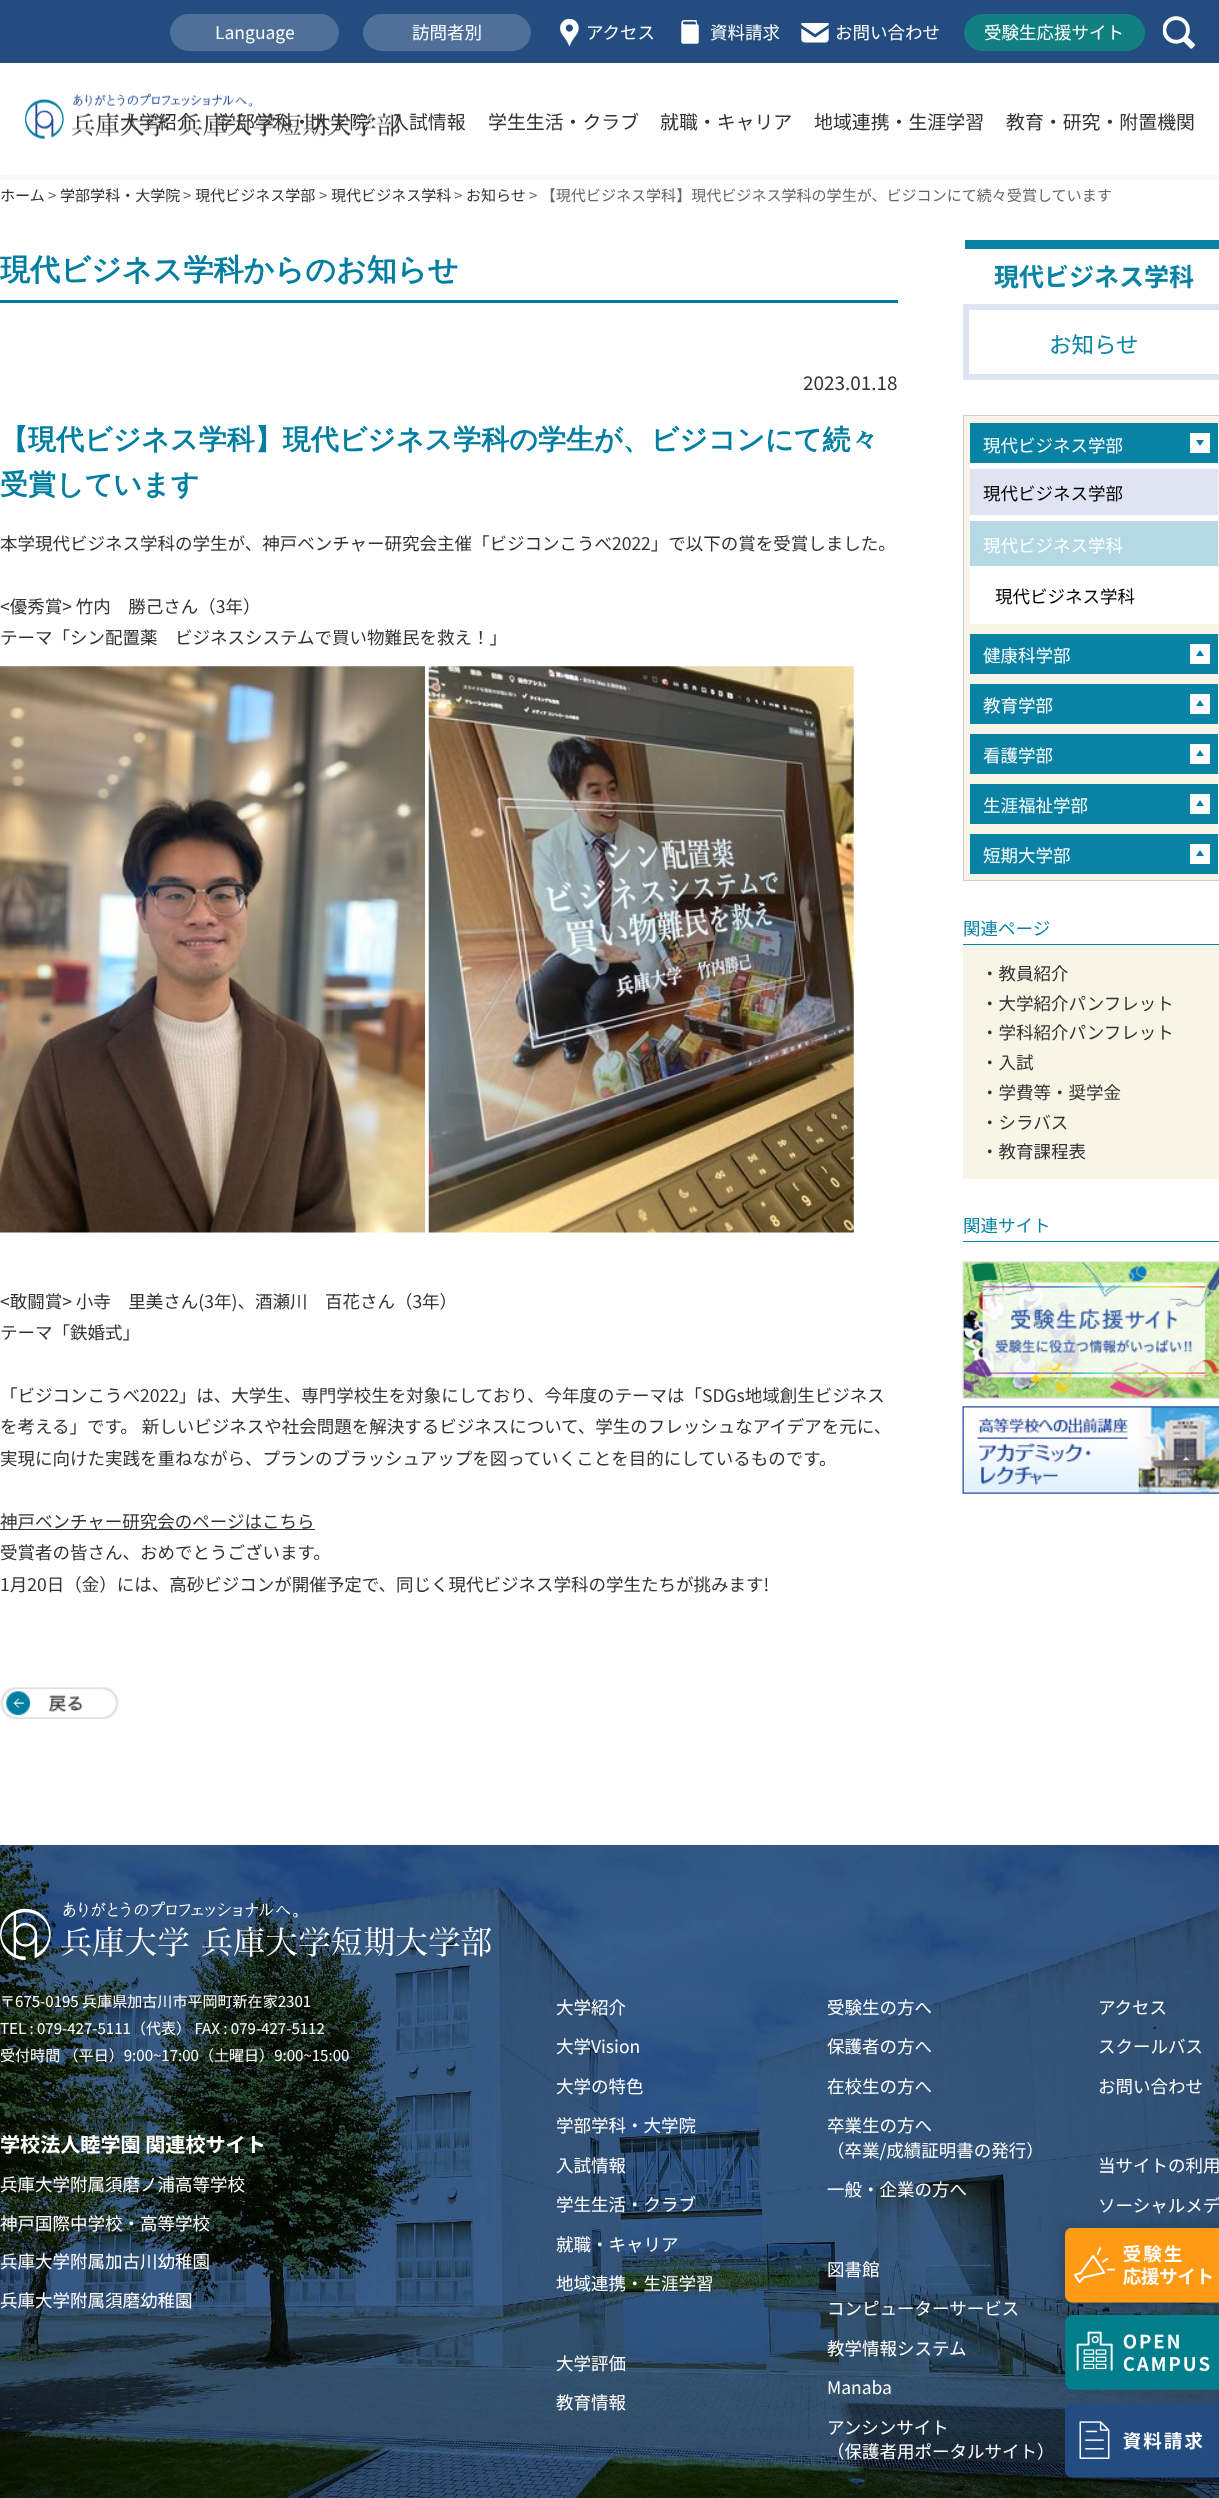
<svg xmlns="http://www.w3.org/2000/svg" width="1219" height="2498">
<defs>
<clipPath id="clip1"><rect x="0" y="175" width="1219" height="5"/></clipPath>
<clipPath id="clip2"><path d="M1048 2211h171v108h-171zm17 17h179v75h-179z" clip-rule="evenodd"/></clipPath>
</defs>
<rect width="100%" height="100%" fill="#fff"/>
<g clip-path="url(#clip1)">
<rect x="-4" y="-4" width="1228" height="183" fill="#0000000d" filter="blur(4px)"/>
</g>
<rect width="1219" height="63" fill="#234c80"/>
<rect x="170" y="14" width="169" height="37" rx="18.5" fill="#4f7099"/>
<text x="215" y="39" style="font-family:Noto Sans JP;font-size:17.5px;fill:#fff">Language</text>
<rect x="363" y="14" width="168" height="37" rx="18.5" fill="#4f7099"/>
<text x="412" y="39" style="font-family:Noto Sans JP;font-size:17.5px;fill:#fff">訪問者別</text>
<image x="560" y="19" width="19" height="27" href="media/1.png"/>
<text x="586" y="39" style="font-family:Noto Sans JP;font-size:17.5px;fill:#fff">アクセス</text>
<image x="681" y="20" width="18" height="24" href="media/2.png"/>
<text x="710" y="39" style="font-family:Noto Sans JP;font-size:17.5px;fill:#fff">資料請求</text>
<image x="801" y="23" width="28" height="20" href="media/3.png"/>
<text x="835" y="39" style="font-family:Noto Sans JP;font-size:17.5px;fill:#fff">お問い合わせ</text>
<rect x="964" y="14" width="181" height="37" rx="18.5" fill="#128080"/>
<text x="984" y="39" style="font-family:Noto Sans JP;font-size:17.5px;fill:#fff">受験生応援サイト</text>
<image x="1163" y="16" width="32" height="33" href="media/4.png"/>
<image x="25" y="93" width="375" height="46" href="media/5.png"/>
<text x="120" y="129" style="font-family:Noto Sans JP;font-size:18.9px;fill:#333">大学紹介</text>
<text x="217" y="129" style="font-family:Noto Sans JP;font-size:18.9px;fill:#333">学部学科・大学院</text>
<text x="390" y="129" style="font-family:Noto Sans JP;font-size:18.9px;fill:#333">入試情報</text>
<text x="488" y="129" style="font-family:Noto Sans JP;font-size:18.9px;fill:#333">学生生活・クラブ</text>
<text x="660" y="129" style="font-family:Noto Sans JP;font-size:18.9px;fill:#333">就職・キャリア</text>
<text x="814" y="129" style="font-family:Noto Sans JP;font-size:18.9px;fill:#333">地域連携・生涯学習</text>
<text x="1006" y="129" style="font-family:Noto Sans JP;font-size:18.9px;fill:#333">教育・研究・附置機関</text>
<text x="0" y="201" style="font-family:Noto Sans JP;font-size:15.05px;fill:#333">ホーム</text>
<text x="48" y="201" style="font-family:Noto Sans JP;font-size:15.05px;fill:#666">&gt;</text>
<text x="60" y="201" style="font-family:Noto Sans JP;font-size:15.05px;fill:#333">学部学科・大学院</text>
<text x="183" y="201" style="font-family:Noto Sans JP;font-size:15.05px;fill:#666">&gt;</text>
<text x="195" y="201" style="font-family:Noto Sans JP;font-size:15.05px;fill:#333">現代ビジネス学部</text>
<text x="319" y="201" style="font-family:Noto Sans JP;font-size:15.05px;fill:#666">&gt;</text>
<text x="331" y="201" style="font-family:Noto Sans JP;font-size:15.05px;fill:#333">現代ビジネス学科</text>
<text x="454" y="201" style="font-family:Noto Sans JP;font-size:15.05px;fill:#666">&gt;</text>
<text x="466" y="201" style="font-family:Noto Sans JP;font-size:15.05px;fill:#333">お知らせ</text>
<text x="529" y="201" style="font-family:Noto Sans JP;font-size:15.05px;fill:#666">&gt; 【現代ビジネス学科】現代ビジネス学科の学生が、ビジコンにて続々受賞しています</text>
<rect y="300" width="898" height="3" fill="#007ea2"/>
<text x="0" y="280" style="font-family:WenQuanYi Zen Hei;font-size:30.1px;font-weight:bold;fill:#007ea2">現代ビジネス学科からのお知らせ</text>
<text x="803" y="390" style="font-family:Noto Sans JP;font-size:18.9px;fill:#333">2023.01.18</text>
<text x="0" y="449" style="font-family:WenQuanYi Zen Hei;font-size:28px;font-weight:bold;fill:#007ea2">【現代ビジネス学科】現代ビジネス学科の学生が、ビジコンにて続々</text>
<text x="0" y="494" style="font-family:WenQuanYi Zen Hei;font-size:28px;font-weight:bold;fill:#007ea2">受賞しています</text>
<text x="0" y="550" style="font-family:Noto Sans JP;font-size:17.5px;fill:#333">本学現代ビジネス学科の学生が、神戸ベンチャー研究会主催「ビジコンこうべ2022」で以下の賞を受賞しました。</text>
<text x="0" y="613" style="font-family:Noto Sans JP;font-size:17.5px;fill:#333">&lt;優秀賞&gt; 竹内　勝己さん（3年）</text>
<text x="0" y="644" style="font-family:Noto Sans JP;font-size:17.5px;fill:#333">テーマ「シン配置薬　ビジネスシステムで買い物難民を救え！」</text>
<image x="0" y="666" width="425" height="567" href="media/6.png"/>
<image x="428" y="666" width="426" height="567" href="media/7.png"/>
<text x="0" y="1308" style="font-family:Noto Sans JP;font-size:17.5px;fill:#333">&lt;敢闘賞&gt; 小寺　里美さん(3年)、酒瀬川　百花さん（3年）</text>
<text x="0" y="1339" style="font-family:Noto Sans JP;font-size:17.5px;fill:#333">テーマ「鉄婚式」</text>
<text x="0" y="1402" style="font-family:Noto Sans JP;font-size:17.5px;fill:#333">「ビジコンこうべ2022」は、大学生、専門学校生を対象にしており、今年度のテーマは「SDGs地域創生ビジネス</text>
<text x="0" y="1433" style="font-family:Noto Sans JP;font-size:17.5px;fill:#333">を考える」です。 新しいビジネスや社会問題を解決するビジネスについて、学生のフレッシュなアイデアを元に、</text>
<text x="0" y="1465" style="font-family:Noto Sans JP;font-size:17.5px;fill:#333">実現に向けた実践を重ねながら、プランのブラッシュアップを図っていくことを目的にしているものです。</text>
<rect y="1529" width="315" height="1" fill="#333"/>
<text x="0" y="1528" style="font-family:Noto Sans JP;font-size:17.5px;fill:#333">神戸ベンチャー研究会のページはこちら</text>
<text x="0" y="1559" style="font-family:Noto Sans JP;font-size:17.5px;fill:#333">受賞者の皆さん、おめでとうございます。</text>
<text x="0" y="1591" style="font-family:Noto Sans JP;font-size:17.5px;fill:#333">1月20日（金）には、高砂ビジコンが開催予定で、同じく現代ビジネス学科の学生たちが挑みます!</text>
<image x="0" y="1687" width="119" height="32" href="media/8.png"/>
<rect x="965" y="240" width="254" height="9" fill="#0882a5"/>
<text x="994" y="286" style="font-family:Noto Sans JP;font-size:25px;font-weight:bold;fill:#0882a5">現代ビジネス学科</text>
<rect x="966" y="307" width="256" height="70" fill="none" stroke="#dee4f1" stroke-width="6"/>
<text x="1049" y="353" style="font-family:Noto Sans JP;font-size:22.5px;fill:#0882a5">お知らせ</text>
<rect x="963.5" y="415.5" width="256" height="465" fill="#f9f5e6" stroke="#ccc"/>
<rect x="970" y="423" width="248" height="40" fill="#0882a5"/>
<text x="983" y="452" style="font-family:Noto Sans JP;font-size:17.5px;fill:#fff">現代ビジネス学部</text>
<rect x="1190" y="433" width="20" height="20" fill="#fff"/>
<path d="M1196 440h8l-4 6z" fill="#0882a5"/>
<rect x="970" y="463" width="248" height="161" fill="#fff"/>
<rect x="970" y="469" width="248" height="46" fill="#dee4f1"/>
<text x="983" y="500" style="font-family:Noto Sans JP;font-size:17.5px;fill:#000">現代ビジネス学部</text>
<rect x="970" y="521" width="248" height="45" fill="#b4d9e4"/>
<text x="983" y="552" style="font-family:Noto Sans JP;font-size:17.5px;fill:#fff">現代ビジネス学科</text>
<text x="995" y="603" style="font-family:Noto Sans JP;font-size:17.5px;fill:#000">現代ビジネス学科</text>
<rect x="970" y="634" width="248" height="40" fill="#0882a5"/>
<text x="983" y="662" style="font-family:Noto Sans JP;font-size:17.5px;fill:#fff">健康科学部</text>
<rect x="1190" y="644" width="20" height="20" fill="#fff"/>
<rect x="970" y="684" width="248" height="40" fill="#0882a5"/>
<rect x="1190" y="694" width="20" height="20" fill="#fff"/>
<path d="M1204 656h-8l4-6zm0 50h-8l4-6z" fill="#0882a5"/>
<text x="983" y="712" style="font-family:Noto Sans JP;font-size:17.5px;fill:#fff">教育学部</text>
<rect x="970" y="734" width="248" height="40" fill="#0882a5"/>
<text x="983" y="762" style="font-family:Noto Sans JP;font-size:17.5px;fill:#fff">看護学部</text>
<rect x="1190" y="744" width="20" height="20" fill="#fff"/>
<rect x="970" y="784" width="248" height="40" fill="#0882a5"/>
<rect x="1190" y="794" width="20" height="20" fill="#fff"/>
<path d="M1204 756h-8l4-6zm0 50h-8l4-6z" fill="#0882a5"/>
<text x="983" y="812" style="font-family:Noto Sans JP;font-size:17.5px;fill:#fff">生涯福祉学部</text>
<rect x="970" y="834" width="248" height="40" fill="#0882a5"/>
<text x="983" y="862" style="font-family:Noto Sans JP;font-size:17.5px;fill:#fff">短期大学部</text>
<rect x="1190" y="844" width="20" height="20" fill="#fff"/>
<path d="M1204 856h-8l4-6z" fill="#0882a5"/>
<rect x="963" y="944" width="256" height="1" fill="#0882a5"/>
<text x="963" y="935" style="font-family:Noto Sans JP;font-size:17.5px;fill:#0882a5">関連ページ</text>
<rect x="963" y="945" width="256" height="234" fill="#f9f5e6"/>
<text x="981" y="980" style="font-family:Noto Sans JP;font-size:17.5px;fill:#333">・教員紹介</text>
<text x="981" y="1010" style="font-family:Noto Sans JP;font-size:17.5px;fill:#333">・大学紹介パンフレット</text>
<text x="981" y="1039" style="font-family:Noto Sans JP;font-size:17.5px;fill:#333">・学科紹介パンフレット</text>
<text x="981" y="1069" style="font-family:Noto Sans JP;font-size:17.5px;fill:#333">・入試</text>
<text x="981" y="1099" style="font-family:Noto Sans JP;font-size:17.5px;fill:#333">・学費等・奨学金</text>
<text x="981" y="1129" style="font-family:Noto Sans JP;font-size:17.5px;fill:#333">・シラバス</text>
<text x="981" y="1158" style="font-family:Noto Sans JP;font-size:17.5px;fill:#333">・教育課程表</text>
<rect x="963" y="1241" width="256" height="1" fill="#0882a5"/>
<text x="963" y="1232" style="font-family:Noto Sans JP;font-size:17.5px;fill:#0882a5">関連サイト</text>
<image x="962" y="1261" width="257" height="138" href="media/9.png"/>
<image x="962" y="1406" width="257" height="88" href="media/10.png"/>
<image x="0" y="1845" width="1219" height="653" href="media/11.png"/>
<image x="0" y="1901" width="491" height="59" href="media/12.png"/>
<text x="0" y="2007" style="font-family:Noto Sans JP;font-size:15.05px;fill:#fff">〒675-0195 兵庫県加古川市平岡町新在家2301</text>
<text x="0" y="2034" style="font-family:Noto Sans JP;font-size:15.05px;fill:#fff">TEL : 079-427-5111（代表） FAX : 079-427-5112</text>
<text x="0" y="2061" style="font-family:Noto Sans JP;font-size:15.05px;fill:#fff">受付時間 （平日）9:00~17:00（土曜日）9:00~15:00</text>
<text x="556" y="2014" style="font-family:Noto Sans JP;font-size:17.5px;fill:#fff">大学紹介</text>
<text x="556" y="2053" style="font-family:Noto Sans JP;font-size:17.5px;fill:#fff">大学Vision</text>
<text x="556" y="2093" style="font-family:Noto Sans JP;font-size:17.5px;fill:#fff">大学の特色</text>
<text x="556" y="2132" style="font-family:Noto Sans JP;font-size:17.5px;fill:#fff">学部学科・大学院</text>
<text x="556" y="2172" style="font-family:Noto Sans JP;font-size:17.5px;fill:#fff">入試情報</text>
<text x="556" y="2211" style="font-family:Noto Sans JP;font-size:17.5px;fill:#fff">学生生活・クラブ</text>
<text x="556" y="2251" style="font-family:Noto Sans JP;font-size:17.5px;fill:#fff">就職・キャリア</text>
<text x="556" y="2290" style="font-family:Noto Sans JP;font-size:17.5px;fill:#fff">地域連携・生涯学習</text>
<text x="556" y="2370" style="font-family:Noto Sans JP;font-size:17.5px;fill:#fff">大学評価</text>
<text x="556" y="2409" style="font-family:Noto Sans JP;font-size:17.5px;fill:#fff">教育情報</text>
<text x="827" y="2014" style="font-family:Noto Sans JP;font-size:17.5px;fill:#fff">受験生の方へ</text>
<text x="827" y="2053" style="font-family:Noto Sans JP;font-size:17.5px;fill:#fff">保護者の方へ</text>
<text x="827" y="2093" style="font-family:Noto Sans JP;font-size:17.5px;fill:#fff">在校生の方へ</text>
<text x="827" y="2132" style="font-family:Noto Sans JP;font-size:17.5px;fill:#fff">卒業生の方へ</text>
<text x="827" y="2157" style="font-family:Noto Sans JP;font-size:17.5px;fill:#fff">（卒業/成績証明書の発行）</text>
<text x="827" y="2196" style="font-family:Noto Sans JP;font-size:17.5px;fill:#fff">一般・企業の方へ</text>
<text x="827" y="2276" style="font-family:Noto Sans JP;font-size:17.5px;fill:#fff">図書館</text>
<text x="827" y="2315" style="font-family:Noto Sans JP;font-size:17.5px;fill:#fff">コンピューターサービス</text>
<text x="827" y="2355" style="font-family:Noto Sans JP;font-size:17.5px;fill:#fff">教学情報システム</text>
<text x="827" y="2394" style="font-family:Noto Sans JP;font-size:17.5px;fill:#fff">Manaba</text>
<text x="827" y="2434" style="font-family:Noto Sans JP;font-size:17.5px;fill:#fff">アンシンサイト</text>
<text x="827" y="2458" style="font-family:Noto Sans JP;font-size:17.5px;fill:#fff">（保護者用ポータルサイト）</text>
<text x="1098" y="2014" style="font-family:Noto Sans JP;font-size:17.5px;fill:#fff">アクセス</text>
<text x="1098" y="2053" style="font-family:Noto Sans JP;font-size:17.5px;fill:#fff">スクールバス</text>
<text x="1098" y="2093" style="font-family:Noto Sans JP;font-size:17.5px;fill:#fff">お問い合わせ</text>
<text x="1098" y="2172" style="font-family:Noto Sans JP;font-size:17.5px;fill:#fff">当サイトの利用</text>
<text x="1098" y="2212" style="font-family:Noto Sans JP;font-size:17.5px;fill:#fff">ソーシャルメデ</text>
<text x="0" y="2152" style="font-family:Noto Sans JP;font-size:20.1px;font-weight:bold;fill:#fff">学校法人睦学園 関連校サイト</text>
<text x="0" y="2191" style="font-family:Noto Sans JP;font-size:17.5px;fill:#fff">兵庫大学附属須磨ノ浦高等学校</text>
<text x="0" y="2230" style="font-family:Noto Sans JP;font-size:17.5px;fill:#fff">神戸国際中学校・高等学校</text>
<text x="0" y="2268" style="font-family:Noto Sans JP;font-size:17.5px;fill:#fff">兵庫大学附属加古川幼稚園</text>
<text x="0" y="2307" style="font-family:Noto Sans JP;font-size:17.5px;fill:#fff">兵庫大学附属須磨幼稚園</text>
<g clip-path="url(#clip2)">
<rect x="1061" y="2224" width="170" height="82" fill="#0000001a" filter="blur(4px)"/>
</g>
<image x="1065" y="2228" width="154" height="75" href="media/13.png"/>
<image x="1065" y="2315" width="154" height="75" href="media/14.png"/>
<image x="1065" y="2403" width="154" height="75" href="media/15.png"/>
</svg>
